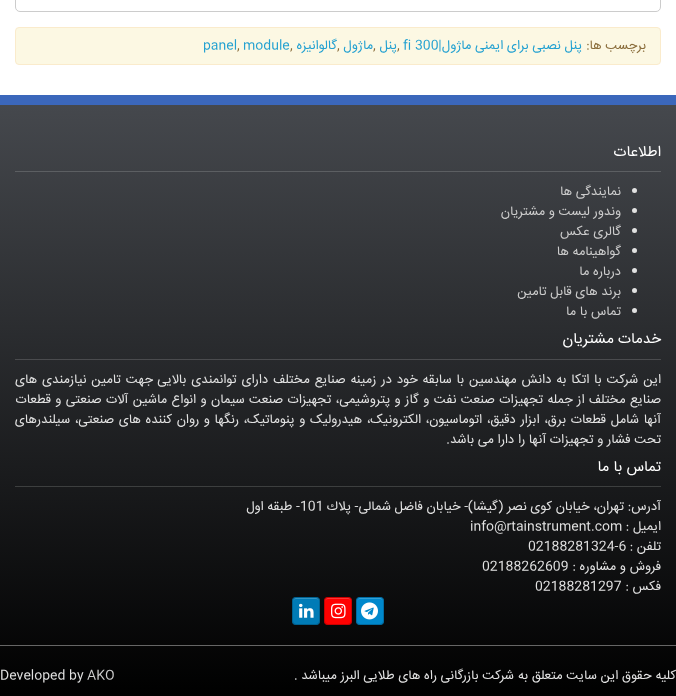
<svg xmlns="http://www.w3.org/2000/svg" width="676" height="696">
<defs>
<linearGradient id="g1" gradientUnits="userSpaceOnUse" x1="338" y1="105" x2="338" y2="696"><stop offset="0" stop-color="#45484d"/><stop offset="1" stop-color="#000"/></linearGradient>
</defs>
<rect width="100%" height="100%" fill="#fff"/>
<path d="M20-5.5h640.5v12.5c0 2.5-2 4.5-4.5 4.5h-636c-2.5 0-4.5-2-4.5-4.5v-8c0-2.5 2-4.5 4.5-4.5z" fill="none" stroke="#ccc"/>
<rect x="15.5" y="27.5" width="645" height="37" rx="3.5" fill="#fcf8e3" stroke="#faebcc"/>
<text x="646" y="49" style="font-family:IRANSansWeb;font-size:13px;direction:rtl;fill:#8a6d3b">برچسب ها:</text>
<text x="582" y="49" style="font-family:IRANSansWeb;font-size:13px;direction:rtl;fill:#23a1d1">پنل نصبی برای ایمنی ماژول|</text>
<text x="403" y="49" style="font-family:IRANSansWeb;font-size:13px;fill:#23a1d1">fi 300</text>
<text x="397" y="49" style="font-family:IRANSansWeb;font-size:13px;fill:#8a6d3b">,</text>
<text x="397" y="49" style="font-family:IRANSansWeb;font-size:13px;direction:rtl;fill:#23a1d1">پنل</text>
<text x="373" y="49" style="font-family:IRANSansWeb;font-size:13px;fill:#8a6d3b">,</text>
<text x="373" y="49" style="font-family:IRANSansWeb;font-size:13px;direction:rtl;fill:#23a1d1">ماژول</text>
<text x="337" y="49" style="font-family:IRANSansWeb;font-size:13px;fill:#8a6d3b">,</text>
<text x="337" y="49" style="font-family:IRANSansWeb;font-size:13px;direction:rtl;fill:#23a1d1">گالوانیزه</text>
<text x="290" y="49" style="font-family:IRANSansWeb;font-size:13px;fill:#8a6d3b">,</text>
<text x="243" y="49" style="font-family:IRANSansWeb;font-size:13px;fill:#23a1d1">module</text>
<text x="237" y="49" style="font-family:IRANSansWeb;font-size:13px;fill:#8a6d3b">,</text>
<text x="203" y="49" style="font-family:IRANSansWeb;font-size:13px;fill:#23a1d1">panel</text>
<rect y="105" width="676" height="591" fill="url(#g1)"/>
<rect y="95" width="676" height="10" fill="#3b67bb"/>
<rect x="15" y="171" width="646" height="1" fill="#5c5f62"/>
<text x="661" y="156" style="font-family:IRANSansWeb;font-size:15px;direction:rtl;fill:#fff">اطلاعات</text>
<circle cx="634.5" cy="190.5" r="2.5" fill="#e2e2e2"/>
<text x="621" y="195" style="font-family:IRANSansWeb;font-size:13px;direction:rtl;fill:#ccc">نمایندگی ها</text>
<circle cx="634.5" cy="210.5" r="2.5" fill="#e2e2e2"/>
<text x="621" y="215" style="font-family:IRANSansWeb;font-size:13px;direction:rtl;fill:#ccc">وندور لیست و مشتریان</text>
<circle cx="634.5" cy="230.5" r="2.5" fill="#e2e2e2"/>
<text x="621" y="235" style="font-family:IRANSansWeb;font-size:13px;direction:rtl;fill:#ccc">گالری عکس</text>
<circle cx="634.5" cy="250.5" r="2.5" fill="#e2e2e2"/>
<text x="621" y="255" style="font-family:IRANSansWeb;font-size:13px;direction:rtl;fill:#ccc">گواهینامه ها</text>
<circle cx="634.5" cy="270.5" r="2.5" fill="#e2e2e2"/>
<text x="621" y="275" style="font-family:IRANSansWeb;font-size:13px;direction:rtl;fill:#ccc">درباره ما</text>
<circle cx="634.5" cy="290.5" r="2.5" fill="#e2e2e2"/>
<text x="621" y="295" style="font-family:IRANSansWeb;font-size:13px;direction:rtl;fill:#ccc">برند های قابل تامین</text>
<circle cx="634.5" cy="310.5" r="2.5" fill="#e2e2e2"/>
<text x="621" y="315" style="font-family:IRANSansWeb;font-size:13px;direction:rtl;fill:#ccc">تماس با ما</text>
<rect x="15" y="359" width="646" height="1" fill="#4a4b4e"/>
<text x="661" y="343" style="font-family:IRANSansWeb;font-size:15px;direction:rtl;fill:#fff">خدمات مشتریان</text>
<text x="661" y="383" word-spacing="1.2" style="font-family:IRANSansWeb;font-size:13px;direction:rtl;fill:#e2e2e2">این شرکت با اتکا به دانش مهندسین با سابقه خود در زمینه صنایع مختلف دارای توانمندی بالایی</text>
<text x="153" y="383" word-spacing="1.2" style="font-family:IRANSansWeb;font-size:13px;direction:rtl;fill:#e2e2e2">جهت تامین نیازمندی های</text>
<text x="661" y="403" word-spacing="0.75" style="font-family:IRANSansWeb;font-size:13px;direction:rtl;fill:#e2e2e2">صنایع مختلف از جمله تجهیزات صنعت نفت و گاز و پتروشیمی، تجهیزات صنعت سیمان و انواع ماشین آلات صنعتی و قطعات</text>
<text x="661" y="423" word-spacing="1" style="font-family:IRANSansWeb;font-size:13px;direction:rtl;fill:#e2e2e2">آنها شامل</text>
<text x="606" y="423" word-spacing="1" style="font-family:IRANSansWeb;font-size:13px;direction:rtl;fill:#e2e2e2">قطعات برق، ابزار دقیق، اتوماسیون، الکترونیک، هیدرولیک و پنوماتیک، رنگها و روان کننده های صنعتی، سیلندرهای</text>
<text x="661" y="443" style="font-family:IRANSansWeb;font-size:13px;direction:rtl;fill:#e2e2e2">تحت فشار و تجهیزات آنها را دارا می باشد.</text>
<rect x="15" y="486" width="646" height="1" fill="#3d3f3f"/>
<text x="661" y="471" style="font-family:IRANSansWeb;font-size:15px;direction:rtl;fill:#fff">تماس با ما</text>
<text x="661" y="510" style="font-family:IRANSansWeb;font-size:13px;direction:rtl;fill:#e2e2e2">آدرس:</text>
<text x="624" y="510" style="font-family:IRANSansWeb;font-size:13px;direction:rtl;fill:#e2e2e2">تهران، خيابان کوی نصر (گیشا)- خيابان فاضل شمالی- پلاك</text>
<text x="300" y="510" style="font-family:IRANSansWeb;font-size:13px;fill:#e2e2e2">101</text>
<text x="300" y="510" style="font-family:IRANSansWeb;font-size:13px;direction:rtl;fill:#e2e2e2">- طبقه اول</text>
<text x="661" y="530" style="font-family:IRANSansWeb;font-size:13px;direction:rtl;fill:#e2e2e2">ایمیل :</text>
<text x="470" y="530" style="font-family:IRANSansWeb;font-size:13px;fill:#e2e2e2">info@rtainstrument.com</text>
<text x="661" y="550" style="font-family:IRANSansWeb;font-size:13px;direction:rtl;fill:#e2e2e2">تلفن :</text>
<text x="528" y="550" style="font-family:IRANSansWeb;font-size:13px;fill:#e2e2e2">02188281324-6</text>
<text x="661" y="570" style="font-family:IRANSansWeb;font-size:13px;direction:rtl;fill:#e2e2e2">فروش و مشاوره :</text>
<text x="482" y="570" style="font-family:IRANSansWeb;font-size:13px;fill:#e2e2e2">02188262609</text>
<text x="661" y="590" style="font-family:IRANSansWeb;font-size:13px;direction:rtl;fill:#e2e2e2">فکس :</text>
<text x="535" y="590" style="font-family:IRANSansWeb;font-size:13px;fill:#e2e2e2">02188281297</text>
<rect x="356" y="597" width="28" height="28" rx="4" fill="#08c"/>
<path d="M360 599h20c2 0 3 1 3 3c0-4.5-2.5-4-6.5-4h-13c-4 0-6.5-.5-6.5 4c0-2 1-3 3-3z" fill="#33a0d6"/>
<rect x="356.5" y="597.5" width="27" height="27" rx="3.5" fill="none" stroke="#00000033"/>
<image x="361" y="602" width="17" height="18" href="media/1.png"/>
<rect x="324" y="597" width="28" height="28" rx="4" fill="#ff0101"/>
<path d="M328 599h20c2 0 3 1 3 3c0-4.5-2.5-4-6.5-4h-13c-4 0-6.5-.5-6.5 4c0-2 1-3 3-3z" fill="#ff3434"/>
<rect x="324.5" y="597.5" width="27" height="27" rx="3.5" fill="none" stroke="#00000033"/>
<image x="331" y="603" width="15" height="16" href="media/2.png"/>
<rect x="292" y="597" width="28" height="28" rx="4" fill="#007bb6"/>
<path d="M296 599h20c2 0 3 1 3 3c0-4.5-2.5-4-6.5-4h-13c-4 0-6.5-.5-6.5 4c0-2 1-3 3-3z" fill="#3395c5"/>
<rect x="292.5" y="597.5" width="27" height="27" rx="3.5" fill="none" stroke="#00000033"/>
<image x="299" y="603" width="15" height="15" href="media/3.png"/>
<rect y="645" width="676" height="1" fill="#666"/>
<text x="676" y="679" style="font-family:IRANSansWeb;font-size:13px;direction:rtl;fill:#e2e2e2">کلیه حقوق این سایت متعلق به</text>
<text x="514" y="679" style="font-family:IRANSansWeb;font-size:13px;direction:rtl;fill:#e2e2e2">شرکت بازرگانی راه های طلایی البرز میباشد</text>
<text x="294" y="679" style="font-family:IRANSansWeb;font-size:13px;fill:#e2e2e2">.</text>
<text x="87" y="679" style="font-family:IRANSansWeb;font-size:13px;fill:#ccc">AKO</text>
<text x="0" y="679" style="font-family:IRANSansWeb;font-size:13px;fill:#e2e2e2">Developed by</text>
</svg>
